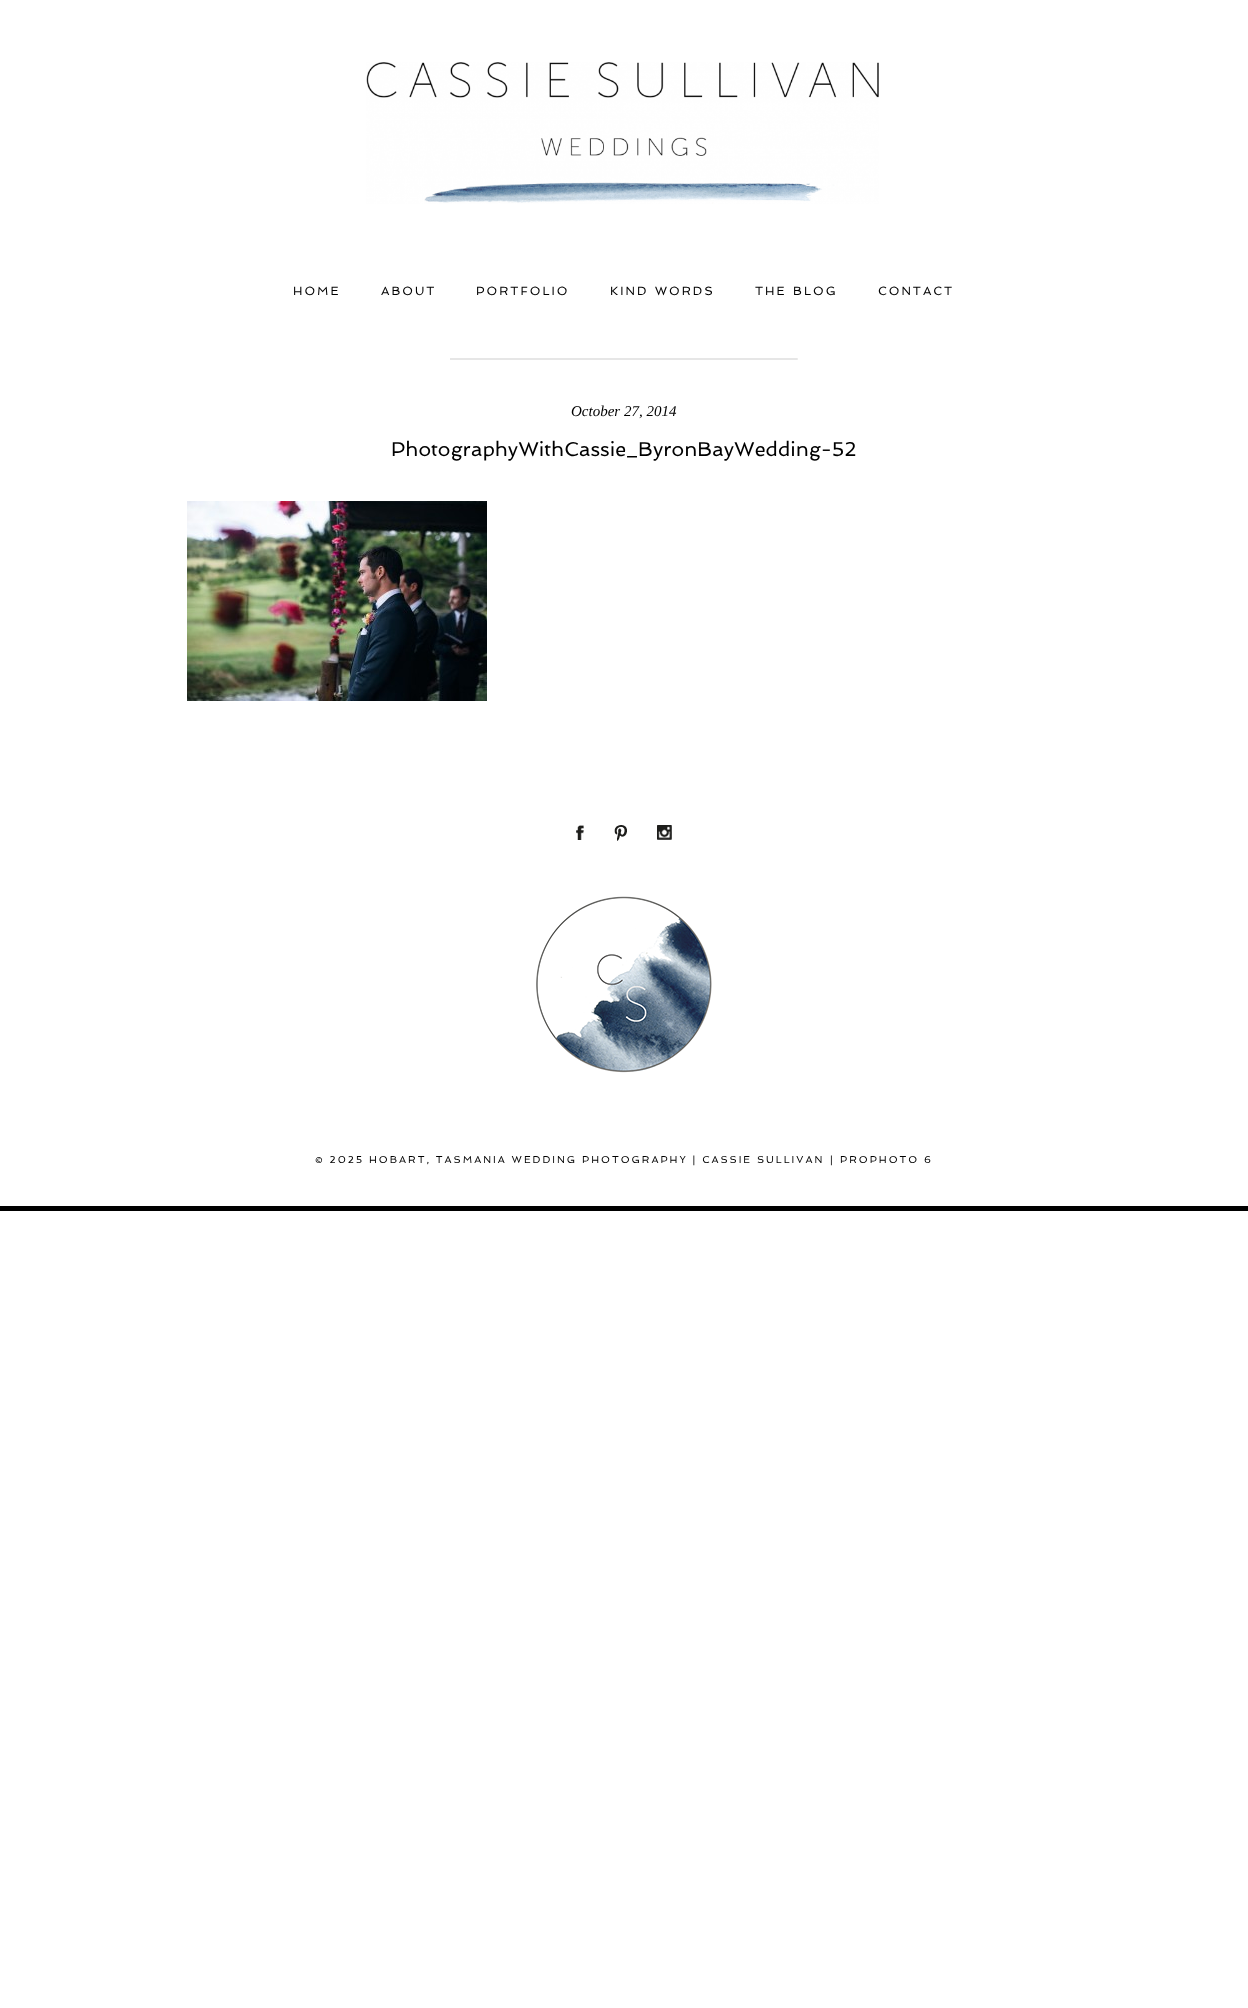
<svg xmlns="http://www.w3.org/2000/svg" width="1248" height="2008">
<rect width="100%" height="100%" fill="#fff"/>
<image x="366" y="62" width="513" height="142" href="media/1.png"/>
<text x="293" y="295" style="font-family:Spinnaker;font-size:12px;letter-spacing:2px;fill:#000">HOME</text>
<text x="381" y="295" style="font-family:Spinnaker;font-size:12px;letter-spacing:2px;fill:#000">ABOUT</text>
<text x="476" y="295" style="font-family:Spinnaker;font-size:12px;letter-spacing:2px;fill:#000">PORTFOLIO</text>
<text x="610" y="295" word-spacing="1" style="font-family:Spinnaker;font-size:12px;letter-spacing:2px;fill:#000">KIND WORDS</text>
<text x="755" y="295" word-spacing="1" style="font-family:Spinnaker;font-size:12px;letter-spacing:2px;fill:#000">THE BLOG</text>
<text x="878" y="295" style="font-family:Spinnaker;font-size:12px;letter-spacing:2px;fill:#000">CONTACT</text>
<image x="450" y="358" width="348" height="2" href="media/2.png"/>
<text x="571" y="416" style="font-family:Liberation Serif;font-size:15px;font-style:italic;fill:#000">October 27, 2014</text>
<text x="391" y="456" style="font-family:Spinnaker;font-size:20px;fill:#000">PhotographyWithCassie_ByronBayWedding-52</text>
<image x="187" y="501" width="300" height="200" href="media/3.png"/>
<image x="576" y="825" width="8" height="15" href="media/4.png"/>
<image x="614" y="825" width="13" height="16" href="media/5.png"/>
<image x="657" y="825" width="15" height="15" href="media/6.png"/>
<image x="536" y="896" width="176" height="177" href="media/7.png"/>
<rect y="1206" width="1248" height="5" fill="#000"/>
<text x="315" y="1163" style="font-family:Spinnaker;font-size:10px;letter-spacing:2px;fill:#000">© 2025 HOBART, TASMANIA WEDDING PHOTOGRAPHY | CASSIE SULLIVAN</text>
<text x="830" y="1163" style="font-family:Spinnaker;font-size:10px;letter-spacing:2px;fill:#000">|</text>
<text x="840" y="1163" style="font-family:Spinnaker;font-size:10px;letter-spacing:2px;fill:#000">PROPHOTO 6</text>
</svg>
